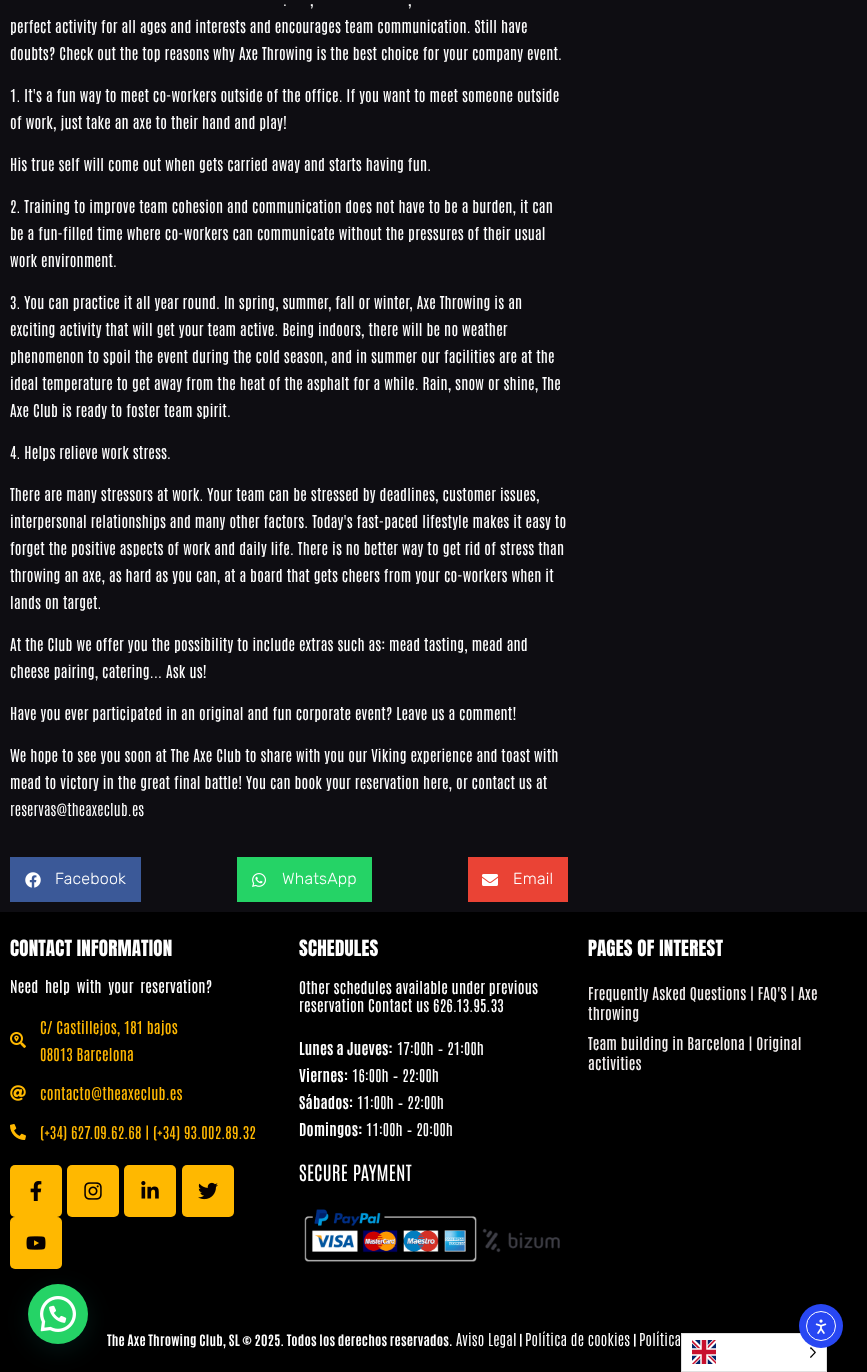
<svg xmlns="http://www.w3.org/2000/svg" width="867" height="1372">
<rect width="100%" height="100%" fill="#0e0d12"/>
<text x="283" y="6" style="font-family:Antonio;font-size:15px;letter-spacing:0.2px;fill:#fff">.</text>
<text x="310" y="6" style="font-family:Antonio;font-size:15px;letter-spacing:0.2px;fill:#fff">,</text>
<text x="408" y="6" style="font-family:Antonio;font-size:15px;letter-spacing:0.2px;fill:#fff">,</text>
<text x="10" y="33" style="font-family:Antonio;font-size:15px;letter-spacing:0.2px;fill:#fff">perfect activity for all ages and interests and encourages team communication. Still have</text>
<text x="10" y="60" style="font-family:Antonio;font-size:15px;letter-spacing:0.2px;fill:#fff">doubts? Check out the top reasons why Axe Throwing is the best choice for your company event.</text>
<text x="10" y="102" style="font-family:Antonio;font-size:15px;letter-spacing:0.2px;fill:#fff">1. It's a fun way to meet co-workers outside of the office. If you want to meet someone outside</text>
<text x="10" y="129" style="font-family:Antonio;font-size:15px;letter-spacing:0.2px;fill:#fff">of work, just take an axe to their hand and play!</text>
<text x="10" y="171" style="font-family:Antonio;font-size:15px;letter-spacing:0.2px;fill:#fff">His true self will come out when gets carried away and starts having fun.</text>
<text x="10" y="213" style="font-family:Antonio;font-size:15px;letter-spacing:0.2px;fill:#fff">2. Training to improve team cohesion and communication does not have to be a burden, it can</text>
<text x="10" y="240" style="font-family:Antonio;font-size:15px;letter-spacing:0.2px;fill:#fff">be a fun-filled time where co-workers can communicate without the pressures of their usual</text>
<text x="10" y="267" style="font-family:Antonio;font-size:15px;letter-spacing:0.2px;fill:#fff">work environment.</text>
<text x="10" y="309" style="font-family:Antonio;font-size:15px;letter-spacing:0.2px;fill:#fff">3. You can practice it all year round. In spring, summer, fall or winter, Axe Throwing is an</text>
<text x="10" y="336" style="font-family:Antonio;font-size:15px;letter-spacing:0.2px;fill:#fff">exciting activity that will get your team active. Being indoors, there will be no weather</text>
<text x="10" y="363" style="font-family:Antonio;font-size:15px;letter-spacing:0.2px;fill:#fff">phenomenon to spoil the event during the cold season, and in summer our facilities are at the</text>
<text x="10" y="390" style="font-family:Antonio;font-size:15px;letter-spacing:0.2px;fill:#fff">ideal temperature to get away from the heat of the asphalt for a while. Rain, snow or shine, The</text>
<text x="10" y="417" style="font-family:Antonio;font-size:15px;letter-spacing:0.2px;fill:#fff">Axe Club is ready to foster team spirit.</text>
<text x="10" y="459" style="font-family:Antonio;font-size:15px;letter-spacing:0.2px;fill:#fff">4. Helps relieve work stress.</text>
<text x="10" y="501" style="font-family:Antonio;font-size:15px;letter-spacing:0.2px;fill:#fff">There are many stressors at work. Your team can be stressed by deadlines, customer issues,</text>
<text x="10" y="528" style="font-family:Antonio;font-size:15px;letter-spacing:0.2px;fill:#fff">interpersonal relationships and many other factors. Today's fast-paced lifestyle makes it easy to</text>
<text x="10" y="555" style="font-family:Antonio;font-size:15px;letter-spacing:0.2px;fill:#fff">forget the positive aspects of work and daily life. There is no better way to get rid of stress than</text>
<text x="10" y="582" style="font-family:Antonio;font-size:15px;letter-spacing:0.2px;fill:#fff">throwing an axe, as hard as you can, at a board that gets cheers from your co-workers when it</text>
<text x="10" y="609" style="font-family:Antonio;font-size:15px;letter-spacing:0.2px;fill:#fff">lands on target.</text>
<text x="10" y="651" style="font-family:Antonio;font-size:15px;letter-spacing:0.2px;fill:#fff">At the Club we offer you the possibility to include extras such as: mead tasting, mead and</text>
<text x="10" y="678" style="font-family:Antonio;font-size:15px;letter-spacing:0.2px;fill:#fff">cheese pairing, catering... Ask us!</text>
<text x="10" y="720" style="font-family:Antonio;font-size:15px;letter-spacing:0.2px;fill:#fff">Have you ever participated in an original and fun corporate event? Leave us a comment!</text>
<text x="10" y="762" style="font-family:Antonio;font-size:15px;letter-spacing:0.2px;fill:#fff">We hope to see you soon at The Axe Club to share with you our Viking experience and toast with</text>
<text x="10" y="789" style="font-family:Antonio;font-size:15px;letter-spacing:0.2px;fill:#fff">mead to victory in the great final battle! You can book your reservation here, or contact us at</text>
<text x="10" y="816" style="font-family:Antonio;font-size:15px;font-weight:300;letter-spacing:0.2px;fill:#fff">reservas@theaxeclub.es</text>
<rect x="10" y="857" width="131" height="45" fill="#3b5998"/>
<image x="25" y="872" width="16" height="16" href="media/1.png"/>
<text x="55" y="884" style="font-family:Rubik;font-size:16px;font-weight:300;letter-spacing:0.2px;fill:#fff">Facebook</text>
<rect x="237" y="857" width="135" height="45" fill="#25d366"/>
<image x="252" y="873" width="14" height="14" href="media/2.png"/>
<text x="282" y="884" style="font-family:Rubik;font-size:16px;font-weight:300;letter-spacing:0.2px;fill:#fff">WhatsApp</text>
<rect x="468" y="857" width="100" height="45" fill="#ea4335"/>
<image x="482" y="874" width="16" height="12" href="media/3.png"/>
<text x="513" y="884" style="font-family:Rubik;font-size:16px;font-weight:300;letter-spacing:0.2px;fill:#fff">Email</text>
<rect y="912" width="867" height="460" fill="#000"/>
<text x="10" y="956" style="font-family:Anton;font-size:19px;letter-spacing:0.2px;fill:#fff">CONTACT INFORMATION</text>
<text x="10" y="993" word-spacing="3" style="font-family:Antonio;font-size:15px;font-weight:500;letter-spacing:0.2px;fill:#fff">Need help with your reservation?</text>
<image x="10" y="1032" width="16" height="16" href="media/4.png"/>
<text x="40" y="1034" style="font-family:Antonio;font-size:15px;font-weight:500;letter-spacing:0.2px;fill:#ffb800">C/ Castillejos, 181 bajos</text>
<text x="40" y="1061" style="font-family:Antonio;font-size:15px;font-weight:500;letter-spacing:0.2px;fill:#ffb800">08013 Barcelona</text>
<image x="10" y="1085" width="16" height="16" href="media/5.png"/>
<text x="40" y="1100" style="font-family:Antonio;font-size:15px;font-weight:500;letter-spacing:0.2px;fill:#ffb800">contacto@theaxeclub.es</text>
<image x="10" y="1124" width="16" height="16" href="media/6.png"/>
<text x="40" y="1139" style="font-family:Antonio;font-size:15px;font-weight:500;letter-spacing:0.2px;fill:#ffb800">(+34) 627.09.62.68 | (+34) 93.002.89.32</text>
<rect x="10" y="1165" width="52" height="52" rx="5" fill="#ffb800"/>
<image x="30" y="1181" width="12" height="20" href="media/7.png"/>
<rect x="67" y="1165" width="52" height="52" rx="5" fill="#ffb800"/>
<image x="84" y="1182" width="18" height="18" href="media/8.png"/>
<rect x="124" y="1165" width="52" height="52" rx="5" fill="#ffb800"/>
<image x="141" y="1181" width="18" height="18" href="media/9.png"/>
<rect x="182" y="1165" width="52" height="52" rx="5" fill="#ffb800"/>
<image x="198" y="1182" width="20" height="18" href="media/10.png"/>
<rect x="10" y="1217" width="52" height="52" rx="5" fill="#ffb800"/>
<image x="26" y="1236" width="20" height="14" href="media/11.png"/>
<text x="299" y="956" style="font-family:Anton;font-size:19px;letter-spacing:0.2px;fill:#fff">SCHEDULES</text>
<text x="299" y="994" style="font-family:Antonio;font-size:15px;font-weight:500;letter-spacing:0.2px;fill:#fff">Other schedules available under previous</text>
<text x="299" y="1012" style="font-family:Antonio;font-size:15px;font-weight:500;letter-spacing:0.2px;fill:#fff">reservation Contact us 626.13.95.33</text>
<text x="299" y="1055" style="font-family:Antonio;font-size:15px;font-weight:bold;letter-spacing:0.2px;fill:#fff">Lunes a Jueves:</text>
<text x="397" y="1055" style="font-family:Antonio;font-size:15px;letter-spacing:0.2px;fill:#fff">17:00h – 21:00h</text>
<text x="299" y="1082" style="font-family:Antonio;font-size:15px;font-weight:bold;letter-spacing:0.2px;fill:#fff">Viernes:</text>
<text x="352" y="1082" style="font-family:Antonio;font-size:15px;letter-spacing:0.2px;fill:#fff">16:00h – 22:00h</text>
<text x="299" y="1109" style="font-family:Antonio;font-size:15px;font-weight:bold;letter-spacing:0.2px;fill:#fff">Sábados:</text>
<text x="357" y="1109" style="font-family:Antonio;font-size:15px;letter-spacing:0.2px;fill:#fff">11:00h – 22:00h</text>
<text x="299" y="1136" style="font-family:Antonio;font-size:15px;font-weight:bold;letter-spacing:0.2px;fill:#fff">Domingos:</text>
<text x="366" y="1136" style="font-family:Antonio;font-size:15px;letter-spacing:0.2px;fill:#fff">11:00h – 20:00h</text>
<text x="299" y="1181" style="font-family:Antonio;font-size:19px;letter-spacing:0.2px;fill:#fff">SECURE PAYMENT</text>
<image x="304" y="1209" width="256" height="53" href="media/12.png"/>
<text x="588" y="956" style="font-family:Anton;font-size:19px;letter-spacing:0.2px;fill:#fff">PAGES OF INTEREST</text>
<text x="588" y="1000" style="font-family:Antonio;font-size:15px;font-weight:500;letter-spacing:0.2px;fill:#f4efef">Frequently Asked Questions | FAQ'S | Axe</text>
<text x="588" y="1020" style="font-family:Antonio;font-size:15px;font-weight:500;letter-spacing:0.2px;fill:#f4efef">throwing</text>
<text x="588" y="1050" style="font-family:Antonio;font-size:15px;font-weight:500;letter-spacing:0.2px;fill:#f4efef">Team building in Barcelona | Original</text>
<text x="588" y="1070" style="font-family:Antonio;font-size:15px;font-weight:500;letter-spacing:0.2px;fill:#f4efef">activities</text>
<text x="107" y="1346" style="font-family:Antonio;font-size:13.3px;font-weight:bold;letter-spacing:0.2px;fill:#fff">The Axe Throwing Club, SL © 2025. Todos los derechos reservados.</text>
<text x="456" y="1346" style="font-family:Antonio;font-size:15px;font-weight:300;letter-spacing:0.2px;fill:#fff">Aviso Legal</text>
<text x="519" y="1346" style="font-family:Antonio;font-size:13.3px;font-weight:bold;letter-spacing:0.2px;fill:#fff">|</text>
<text x="525" y="1346" style="font-family:Antonio;font-size:15px;font-weight:300;letter-spacing:0.2px;fill:#fff">Política de cookies</text>
<text x="633" y="1346" style="font-family:Antonio;font-size:13.3px;font-weight:bold;letter-spacing:0.2px;fill:#fff">|</text>
<text x="639" y="1346" style="font-family:Antonio;font-size:15px;font-weight:300;letter-spacing:0.2px;fill:#fff">Política</text>
<rect x="29" y="1290" width="60" height="60" rx="30" fill="#075e543d" filter="blur(12px)"/>
<circle cx="58" cy="1314" r="30" fill="#25d366"/>
<image x="40" y="1296" width="36" height="36" href="media/13.png"/>
<rect x="681.5" y="1333.5" width="145" height="38" fill="#fff" stroke="#e0e0e0"/>
<image x="810" y="1347" width="6" height="11" href="media/16.png"/>
<circle cx="821" cy="1326" r="22" fill="#2847f3"/>
<circle cx="821" cy="1326" r="14.5" fill="none" stroke="#fff"/>
<image x="815" y="1319" width="12" height="15" href="media/14.png"/>
<image x="692" y="1340" width="24" height="24" href="media/15.png"/>
</svg>
